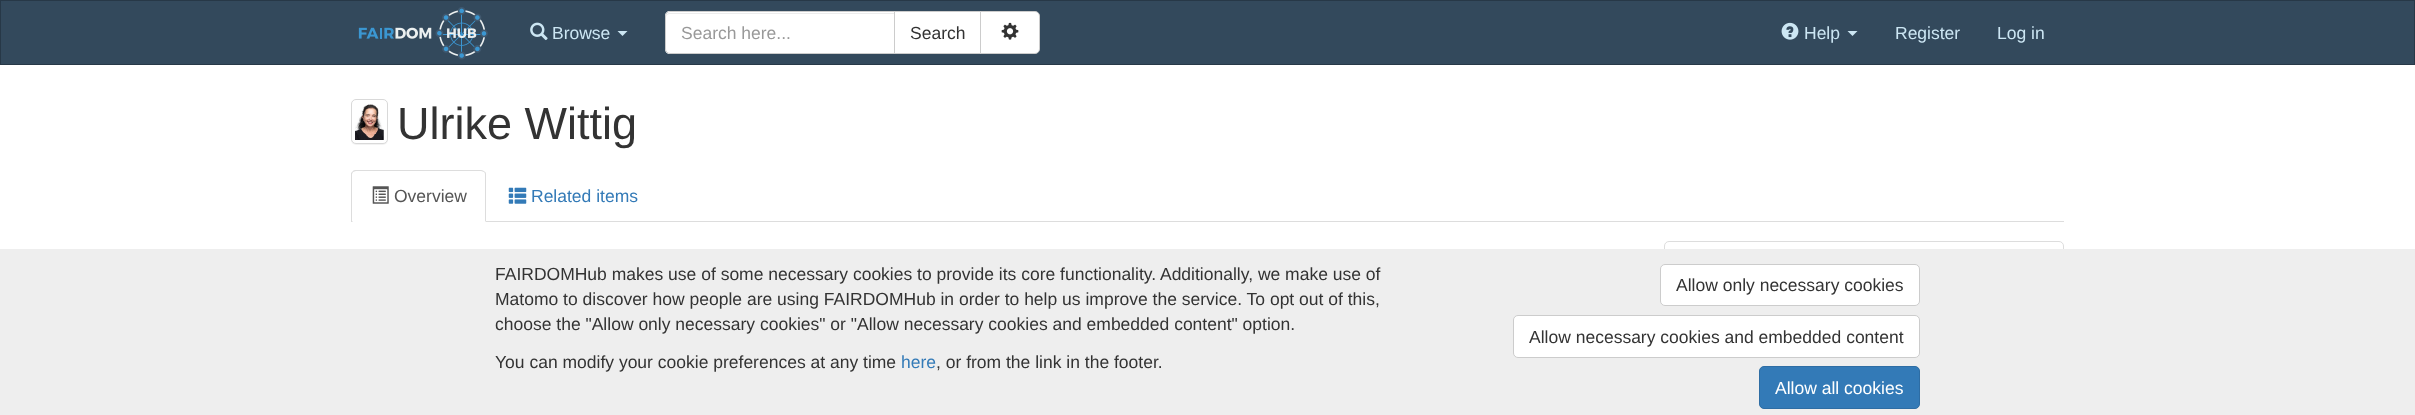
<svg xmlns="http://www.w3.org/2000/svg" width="2415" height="415">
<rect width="100%" height="100%" fill="#fff"/>
<rect x="0.5" y="0.5" width="2414" height="64" fill="#33495c" stroke="#273847"/>
<image x="358" y="7" width="130" height="53" href="media/1.png"/>
<image x="530" y="22" width="18" height="19" href="media/2.png"/>
<text x="552" y="39" style="font-family:Liberation Sans;font-size:17.5px;fill:#cce6f3">Browse</text>
<path d="M617.5 31h10l-5 5z" fill="#cce6f3"/>
<path d="M670 11h225v43h-225c-3 0-5-2-5-5v-33c0-3 2-5 5-5z" fill="#fff"/>
<path d="M670 14h224v-1h-224c-3 0-4 2-4 5c0-3 2-4 4-4z" fill="#ececec"/>
<path d="M670 11.5h224.5v42h-224.5c-2.5 0-4.5-2-4.5-4.5v-33c0-2.5 2-4.5 4.5-4.5z" fill="none" stroke="#ccc"/>
<text x="681" y="39" style="font-family:Liberation Sans;font-size:17.5px;fill:#999">Search here...</text>
<rect x="894.5" y="11.5" width="86" height="42" fill="#fff" stroke="#ccc"/>
<text x="910" y="39" style="font-family:Liberation Sans;font-size:17.5px;fill:#333">Search</text>
<path d="M980.5 11.5h54.5c2.5 0 4.5 2 4.5 4.5v33c0 2.5-2 4.5-4.5 4.5h-54.5z" fill="#fff" stroke="#ccc"/>
<image x="1001" y="22" width="18" height="18" href="media/3.png"/>
<image x="1781" y="22" width="18" height="18" href="media/4.png"/>
<text x="1804" y="39" style="font-family:Liberation Sans;font-size:17.5px;fill:#cce6f3">Help</text>
<path d="M1847.5 31h10l-5 5z" fill="#cce6f3"/>
<text x="1895" y="39" style="font-family:Liberation Sans;font-size:17.5px;fill:#cce6f3">Register</text>
<text x="1997" y="39" style="font-family:Liberation Sans;font-size:17.5px;fill:#cce6f3">Log in</text>
<rect x="351" y="100" width="37" height="45" rx="5" fill="#0000000d" filter="blur(0.5px)"/>
<rect x="351.5" y="99.5" width="36" height="44" rx="4.5" fill="#fff" stroke="#d9d9d9"/>
<image x="355" y="104" width="29" height="36" href="media/5.png"/>
<text x="397" y="139" style="font-family:Liberation Sans;font-size:45px;fill:#333">Ulrike Wittig</text>
<rect x="486" y="221" width="1578" height="1" fill="#ddd"/>
<path d="M356 170c-1 0-3 0-3 1v1l3-1h125l3 1h1c-1-1-2-2-4-2z" fill="#ddd"/>
<path d="M485 172c1 0 1 2 1 3v47l-1-1v-46c0-1 0-2-1-3z" fill="#ddd"/>
<path d="M351 173l2-2v1l-1 2v47h1l-1 1h-1z" fill="#ddd"/>
<image x="372" y="186" width="17" height="18" href="media/6.png"/>
<text x="394" y="202" style="font-family:Liberation Sans;font-size:17.5px;fill:#555">Overview</text>
<image x="508" y="187" width="19" height="17" href="media/7.png"/>
<text x="531" y="202" style="font-family:Liberation Sans;font-size:17.5px;fill:#337ab7">Related items</text>
<rect x="1664.5" y="241.5" width="399" height="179" rx="4.5" fill="none" stroke="#ddd"/>
<rect y="249" width="2415" height="166" fill="#eee"/>
<text x="495" y="280" style="font-family:Liberation Sans;font-size:17.5px;fill:#333">FAIRDOMHub makes use of some necessary cookies to provide its core functionality. Additionally, we make use of</text>
<text x="495" y="305" style="font-family:Liberation Sans;font-size:17.5px;fill:#333">Matomo to discover how people are using FAIRDOMHub in order to help us improve the service. To opt out of this,</text>
<text x="495" y="330" style="font-family:Liberation Sans;font-size:17.5px;fill:#333">choose the "Allow only necessary cookies" or "Allow necessary cookies and embedded content" option.</text>
<text x="495" y="368" style="font-family:Liberation Sans;font-size:17.5px;fill:#333">You can modify your cookie preferences at any time</text>
<text x="901" y="368" style="font-family:Liberation Sans;font-size:17.5px;fill:#337ab7">here</text>
<text x="936" y="368" style="font-family:Liberation Sans;font-size:17.5px;fill:#333">, or from the link in the footer.</text>
<rect x="1660.5" y="264.5" width="259" height="41" rx="4.5" fill="#fff" stroke="#ccc"/>
<text x="1676" y="291" style="font-family:Liberation Sans;font-size:17.5px;fill:#333">Allow only necessary cookies</text>
<rect x="1513.5" y="315.5" width="406" height="42" rx="4.5" fill="#fff" stroke="#ccc"/>
<text x="1529" y="343" style="font-family:Liberation Sans;font-size:17.5px;fill:#333">Allow necessary cookies and embedded content</text>
<rect x="1759.5" y="366.5" width="160" height="42" rx="4.5" fill="#337ab7" stroke="#2e6da4"/>
<text x="1775" y="394" style="font-family:Liberation Sans;font-size:17.5px;fill:#fff">Allow all cookies</text>
</svg>
